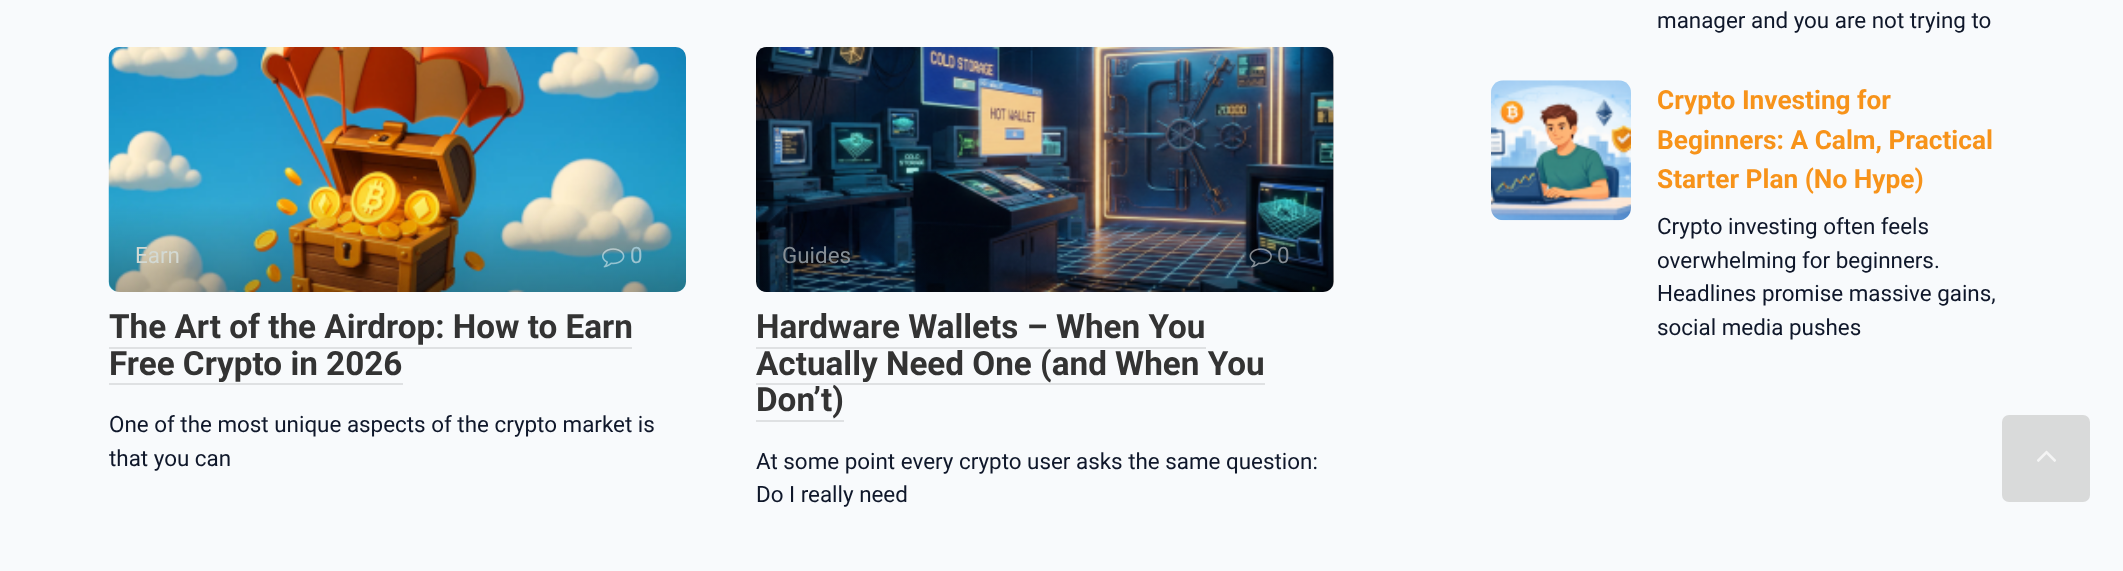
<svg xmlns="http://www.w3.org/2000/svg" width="2123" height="571">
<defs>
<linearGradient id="g1" gradientUnits="userSpaceOnUse" x1="397" y1="203" x2="397" y2="292"><stop offset="0" stop-color="#000" stop-opacity="0"/><stop offset="1" stop-color="#000" stop-opacity="0.3"/></linearGradient>
<linearGradient id="g2" gradientUnits="userSpaceOnUse" x1="1045" y1="203" x2="1045" y2="292"><stop offset="0" stop-color="#000" stop-opacity="0"/><stop offset="1" stop-color="#000" stop-opacity="0.3"/></linearGradient>
</defs>
<rect width="100%" height="100%" fill="#f8fafc"/>
<text x="1657" y="28" style="font-family:Roboto;font-size:22.4px;fill:#0f172a">manager and you are not trying to</text>
<image x="1491" y="80" width="140" height="141" href="media/1.png"/>
<text x="1657" y="109" style="font-family:Roboto;font-size:26.25px;font-weight:bold;fill:#f7931a">Crypto Investing for</text>
<text x="1657" y="149" style="font-family:Roboto;font-size:26.25px;font-weight:bold;fill:#f7931a">Beginners: A Calm, Practical</text>
<text x="1657" y="188" style="font-family:Roboto;font-size:26.25px;font-weight:bold;fill:#f7931a">Starter Plan (No Hype)</text>
<text x="1657" y="234" style="font-family:Roboto;font-size:22.4px;fill:#0f172a">Crypto investing often feels</text>
<text x="1657" y="268" style="font-family:Roboto;font-size:22.4px;fill:#0f172a">overwhelming for beginners.</text>
<text x="1657" y="301" style="font-family:Roboto;font-size:22.4px;fill:#0f172a">Headlines promise massive gains,</text>
<text x="1657" y="335" style="font-family:Roboto;font-size:22.4px;fill:#0f172a">social media pushes</text>
<rect x="109" y="47" width="577" height="245" rx="11" fill="#d0cbcb"/>
<image x="108" y="47" width="578" height="245" href="media/2.png"/>
<rect x="109" y="203" width="577" height="89" rx="11" fill="url(#g1)"/>
<text x="135" y="263" style="font-family:Roboto;font-size:22.4px;fill:#d3d9d3">Earn</text>
<image x="602" y="248" width="23" height="20" href="media/3.png"/>
<text x="630" y="263" style="font-family:Roboto;font-size:22.4px;fill:#9ec4d0">0</text>
<text x="109" y="338" style="font-family:Roboto;font-size:33.25px;font-weight:bold;fill:#333">The Art of the Airdrop: How to Earn</text>
<text x="109" y="375" style="font-family:Roboto;font-size:33.25px;font-weight:bold;fill:#333">Free Crypto in 2026</text>
<rect x="109" y="347" width="523" height="2" fill="#dfe1e3"/>
<rect x="109" y="383" width="294" height="2" fill="#dfe1e3"/>
<text x="109" y="432" style="font-family:Roboto;font-size:22.4px;fill:#0f172a">One of the most unique aspects of the crypto market is</text>
<text x="109" y="466" style="font-family:Roboto;font-size:22.4px;fill:#0f172a">that you can</text>
<rect x="756" y="47" width="578" height="245" rx="11" fill="#d0cbcb"/>
<image x="756" y="47" width="578" height="245" href="media/4.png"/>
<rect x="756" y="203" width="578" height="89" rx="11" fill="url(#g2)"/>
<text x="782" y="263" style="font-family:Roboto;font-size:22.4px;fill:#858d94">Guides</text>
<image x="1249" y="248" width="23" height="20" href="media/5.png"/>
<text x="1277" y="263" style="font-family:Roboto;font-size:22.4px;fill:#858d94">0</text>
<text x="756" y="338" style="font-family:Roboto;font-size:33.25px;font-weight:bold;fill:#333">Hardware Wallets – When You</text>
<rect x="756" y="347" width="450" height="2" fill="#dfe1e3"/>
<text x="756" y="375" style="font-family:Roboto;font-size:33.25px;font-weight:bold;fill:#333">Actually Need One (and When You</text>
<rect x="756" y="383" width="509" height="2" fill="#dfe1e3"/>
<text x="756" y="411" style="font-family:Roboto;font-size:33.25px;font-weight:bold;fill:#333">Don’t)</text>
<rect x="756" y="420" width="88" height="2" fill="#dfe1e3"/>
<text x="756" y="469" style="font-family:Roboto;font-size:22.4px;fill:#0f172a">At some point every crypto user asks the same question:</text>
<text x="756" y="502" style="font-family:Roboto;font-size:22.4px;fill:#0f172a">Do I really need</text>
<rect x="2002" y="415" width="88" height="87" rx="7" fill="#d9dada"/>
<image x="2037" y="450" width="19" height="12" href="media/6.png"/>
</svg>
